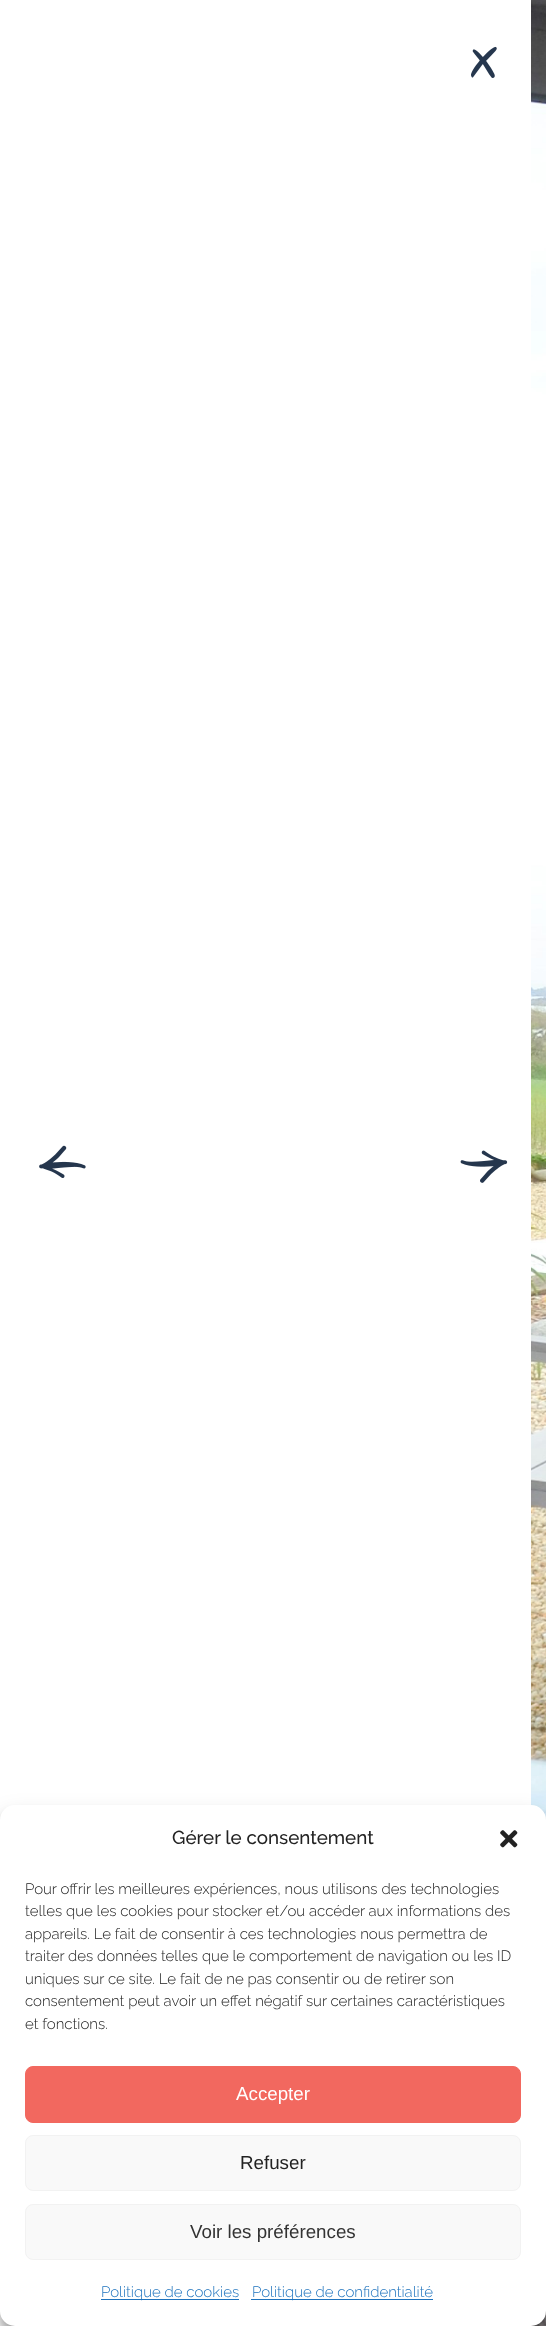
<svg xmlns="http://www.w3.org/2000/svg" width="546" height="2326">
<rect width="100%" height="100%" fill="#fff"/>
<image x="39" y="1145" width="47" height="33" href="media/1.png"/>
<image x="471" y="46" width="26" height="32" href="media/2.png"/>
<image x="531" y="0" width="15" height="2326" href="media/3.png"/>
<image x="460" y="1150" width="48" height="33" href="media/4.png"/>
<rect y="1813" width="546" height="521" rx="15" fill="#0000003b" filter="blur(4px)"/>
<rect y="1818" width="546" height="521" rx="15" fill="#00000030" filter="blur(12.5px)"/>
<rect x="459" y="2234" width="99" height="75" rx="2.5" fill="#808080" filter="blur(3px)"/>
<rect y="1805" width="546" height="521" rx="15" fill="#fff"/>
<text x="172" y="1844" style="font-family:Raleway;font-size:18.75px;font-weight:500;fill:#222">Gérer le consentement</text>
<image x="500" y="1830" width="18" height="18" href="media/5.png"/>
<text x="25" y="1894" style="font-family:Raleway;font-size:15px;font-weight:300;fill:#222">Pour offrir les meilleures expériences, nous utilisons des technologies</text>
<text x="25" y="1916" style="font-family:Raleway;font-size:15px;font-weight:300;fill:#222">telles que les cookies pour stocker et/ou accéder aux informations des</text>
<text x="25" y="1939" style="font-family:Raleway;font-size:15px;font-weight:300;fill:#222">appareils. Le fait de consentir à ces technologies nous permettra de</text>
<text x="25" y="1961" style="font-family:Raleway;font-size:15px;font-weight:300;fill:#222">traiter des données telles que le comportement de navigation ou les ID</text>
<text x="25" y="1984" style="font-family:Raleway;font-size:15px;font-weight:300;fill:#222">uniques sur ce site. Le fait de ne pas consentir ou de retirer son</text>
<text x="25" y="2006" style="font-family:Raleway;font-size:15px;font-weight:300;fill:#222">consentement peut avoir un effet négatif sur certaines caractéristiques</text>
<text x="25" y="2029" style="font-family:Raleway;font-size:15px;font-weight:300;fill:#222">et fonctions.</text>
<rect x="25.5" y="2066.5" width="495" height="56" rx="7.5" fill="#f2685f" stroke="#f2685f"/>
<text x="236" y="2100" style="font-family:Liberation Sans;font-size:18.75px;fill:#fff">Accepter</text>
<rect x="25.5" y="2135.5" width="495" height="55" rx="7.5" fill="#f9f9f9" stroke="#f2f2f2"/>
<text x="240" y="2169" style="font-family:Liberation Sans;font-size:18.75px;fill:#222">Refuser</text>
<rect x="25.5" y="2204.5" width="495" height="55" rx="7.5" fill="#f9f9f9" stroke="#f2f2f2"/>
<text x="190" y="2238" style="font-family:Liberation Sans;font-size:18.75px;fill:#333">Voir les préférences</text>
<rect x="101" y="2299" width="138" height="1" fill="#1e73be"/>
<text x="101" y="2297" style="font-family:Raleway;font-size:15px;font-weight:300;fill:#1e73be">Politique de cookies</text>
<rect x="251" y="2299" width="182" height="1" fill="#1e73be"/>
<text x="252" y="2297" style="font-family:Raleway;font-size:15px;font-weight:300;fill:#1e73be">Politique de confidentialité</text>
</svg>
